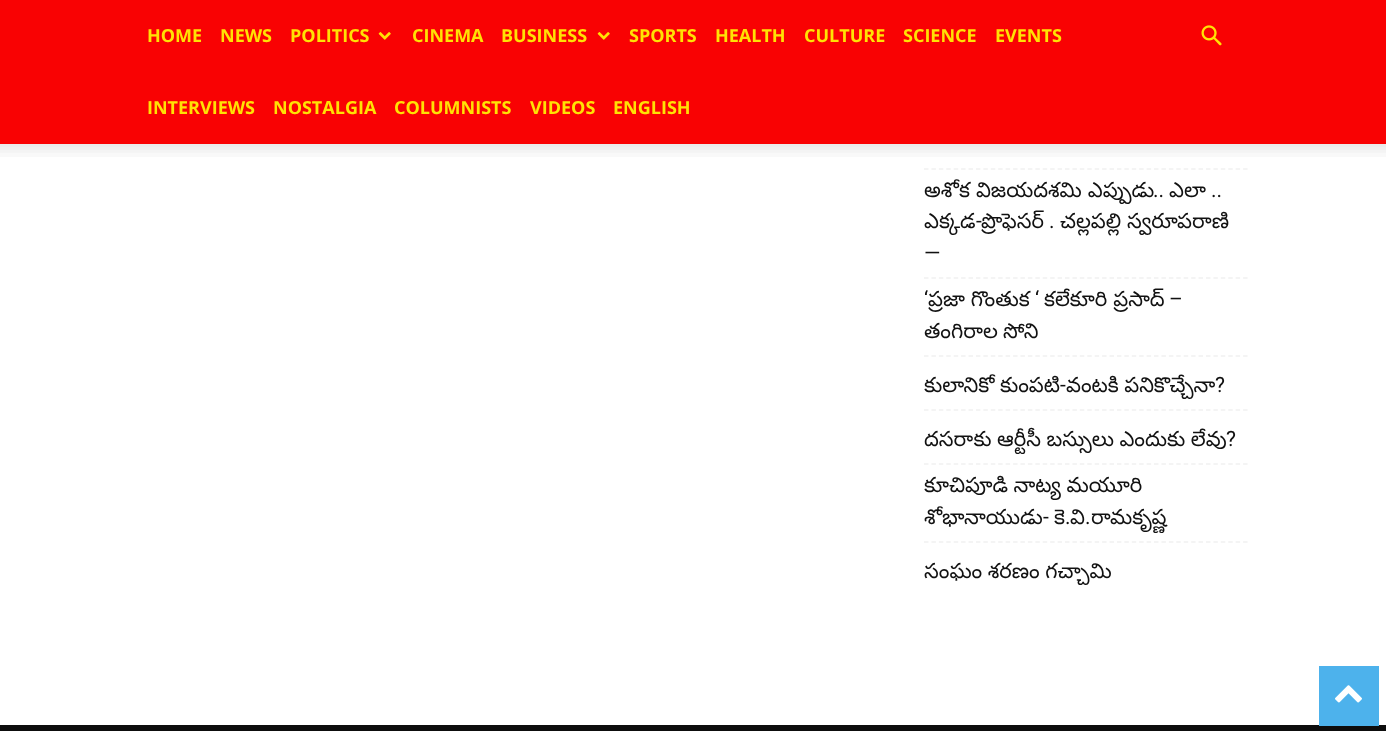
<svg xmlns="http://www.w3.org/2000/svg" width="1386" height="731">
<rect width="100%" height="100%" fill="#fff"/>
<rect width="1386" height="144" fill="#f90203"/>
<text x="147" y="42" style="font-family:Open Sans;font-size:18px;font-weight:bold;fill:#ffe204">HOME</text>
<text x="220" y="42" style="font-family:Open Sans;font-size:18px;font-weight:bold;fill:#ffe204">NEWS</text>
<text x="290" y="42" style="font-family:Open Sans;font-size:18px;font-weight:bold;fill:#ffe204">POLITICS</text>
<image x="378" y="32" width="13" height="8" href="media/1.png"/>
<text x="412" y="42" style="font-family:Open Sans;font-size:18px;font-weight:bold;fill:#ffe204">CINEMA</text>
<text x="501" y="42" style="font-family:Open Sans;font-size:18px;font-weight:bold;fill:#ffe204">BUSINESS</text>
<image x="597" y="32" width="13" height="8" href="media/1.png"/>
<text x="629" y="42" style="font-family:Open Sans;font-size:18px;font-weight:bold;fill:#ffe204">SPORTS</text>
<text x="715" y="42" style="font-family:Open Sans;font-size:18px;font-weight:bold;fill:#ffe204">HEALTH</text>
<text x="804" y="42" style="font-family:Open Sans;font-size:18px;font-weight:bold;fill:#ffe204">CULTURE</text>
<text x="903" y="42" style="font-family:Open Sans;font-size:18px;font-weight:bold;fill:#ffe204">SCIENCE</text>
<text x="995" y="42" style="font-family:Open Sans;font-size:18px;font-weight:bold;fill:#ffe204">EVENTS</text>
<text x="147" y="114" style="font-family:Open Sans;font-size:18px;font-weight:bold;fill:#ffe204">INTERVIEWS</text>
<text x="273" y="114" style="font-family:Open Sans;font-size:18px;font-weight:bold;fill:#ffe204">NOSTALGIA</text>
<text x="394" y="114" style="font-family:Open Sans;font-size:18px;font-weight:bold;fill:#ffe204">COLUMNISTS</text>
<text x="530" y="114" style="font-family:Open Sans;font-size:18px;font-weight:bold;fill:#ffe204">VIDEOS</text>
<text x="613" y="114" style="font-family:Open Sans;font-size:18px;font-weight:bold;fill:#ffe204">ENGLISH</text>
<image x="1201" y="25" width="21" height="21" href="media/2.png"/>
<image x="0" y="144" width="1386" height="13" href="media/3.png"/>
<path d="M924 169h324" fill="none" stroke="#f1f1f1" stroke-width="1.5" stroke-dasharray="4.5 2.92"/>
<path d="M924 278h324" fill="none" stroke="#f1f1f1" stroke-width="1.5" stroke-dasharray="4.5 2.92"/>
<text x="924" y="197" style="font-family:Noto Sans Telugu;font-size:21px;fill:#111">అశోక విజ‌య‌ద‌శ‌మి ఎప్పుడు</text>
<text x="1153" y="197" style="font-family:Roboto;font-size:21px;fill:#111">..</text>
<text x="1169" y="197" style="font-family:Noto Sans Telugu;font-size:21px;fill:#111">ఎలా</text>
<text x="1211" y="197" style="font-family:Roboto;font-size:21px;fill:#111">..</text>
<text x="924" y="228" style="font-family:Noto Sans Telugu;font-size:21px;fill:#111">ఎక్క‌డ‌</text>
<text x="976" y="228" style="font-family:Roboto;font-size:21px;fill:#111">-</text>
<text x="981" y="228" style="font-family:Noto Sans Telugu;font-size:21px;fill:#111">ప్రొఫెసర్</text>
<text x="1060" y="228" style="font-family:Noto Sans Telugu;font-size:21px;fill:#111">చల్లపల్లి స్వరూపరాణి</text>
<text x="1049" y="228" style="font-family:Roboto;font-size:21px;fill:#111">.</text>
<text x="924" y="260" style="font-family:Roboto;font-size:21px;fill:#111">—</text>
<path d="M924 356h324" fill="none" stroke="#f1f1f1" stroke-width="1.5" stroke-dasharray="4.5 2.92"/>
<text x="924" y="306" style="font-family:Roboto;font-size:21px;fill:#111">‘</text>
<text x="928" y="306" style="font-family:Noto Sans Telugu;font-size:21px;fill:#111">ప్రజా గొంతుక</text>
<text x="1044" y="306" style="font-family:Noto Sans Telugu;font-size:21px;fill:#111">కలేకూరి ప్రసాద్</text>
<text x="1035" y="306" style="font-family:Roboto;font-size:21px;fill:#111">‘</text>
<text x="1169" y="306" style="font-family:Roboto;font-size:21px;fill:#111">–</text>
<text x="924" y="338" style="font-family:Noto Sans Telugu;font-size:21px;fill:#111">తంగిరాల</text>
<text x="1003" y="338" style="font-family:Noto Sans Telugu;font-size:21px;fill:#111">సోని</text>
<path d="M924 410h324" fill="none" stroke="#f1f1f1" stroke-width="1.5" stroke-dasharray="4.5 2.92"/>
<text x="924" y="392" style="font-family:Noto Sans Telugu;font-size:21px;fill:#111">కులానికో</text>
<text x="1000" y="392" style="font-family:Noto Sans Telugu;font-size:21px;fill:#111">కుంప‌టి</text>
<text x="1060" y="392" style="font-family:Roboto;font-size:21px;fill:#111">-</text>
<text x="1066" y="392" word-spacing="-0.5" style="font-family:Noto Sans Telugu;font-size:21px;fill:#111">వంట‌కి ప‌నికొచ్చేనా</text>
<text x="1215" y="392" style="font-family:Roboto;font-size:21px;fill:#111">?</text>
<path d="M924 464h324" fill="none" stroke="#f1f1f1" stroke-width="1.5" stroke-dasharray="4.5 2.92"/>
<text x="924" y="446" word-spacing="-0.5" style="font-family:Noto Sans Telugu;font-size:21px;fill:#111">ద‌స‌రాకు ఆర్టీసీ బ‌స్సులు ఎందుకు లేవు</text>
<text x="1226" y="446" style="font-family:Roboto;font-size:21px;fill:#111">?</text>
<path d="M924 542h324" fill="none" stroke="#f1f1f1" stroke-width="1.5" stroke-dasharray="4.5 2.92"/>
<text x="924" y="492" word-spacing="-0.5" style="font-family:Noto Sans Telugu;font-size:21px;fill:#111">కూచిపూడి నాట్య మ‌యూరి</text>
<text x="924" y="524" style="font-family:Noto Sans Telugu;font-size:21px;fill:#111">శోభానాయుడు</text>
<text x="1043" y="524" style="font-family:Roboto;font-size:21px;fill:#111">-</text>
<text x="1054" y="524" style="font-family:Noto Sans Telugu;font-size:21px;fill:#111">కె</text>
<text x="1070" y="524" style="font-family:Noto Sans Telugu;font-size:21px;fill:#111">వి</text>
<text x="1091" y="524" style="font-family:Noto Sans Telugu;font-size:21px;fill:#111">రామకృష్ణ</text>
<text x="1065" y="524" style="font-family:Roboto;font-size:21px;fill:#111">.</text>
<text x="1085" y="524" style="font-family:Roboto;font-size:21px;fill:#111">.</text>
<text x="924" y="578" word-spacing="-0.5" style="font-family:Noto Sans Telugu;font-size:21px;fill:#111">సంఘం శరణం గచ్చామి</text>
<rect y="725" width="1386" height="6" fill="#0d0d0d"/>
<rect x="1319" y="666" width="60" height="60" fill="#4db2ec"/>
<image x="1335" y="685" width="27" height="18" href="media/4.png"/>
</svg>
